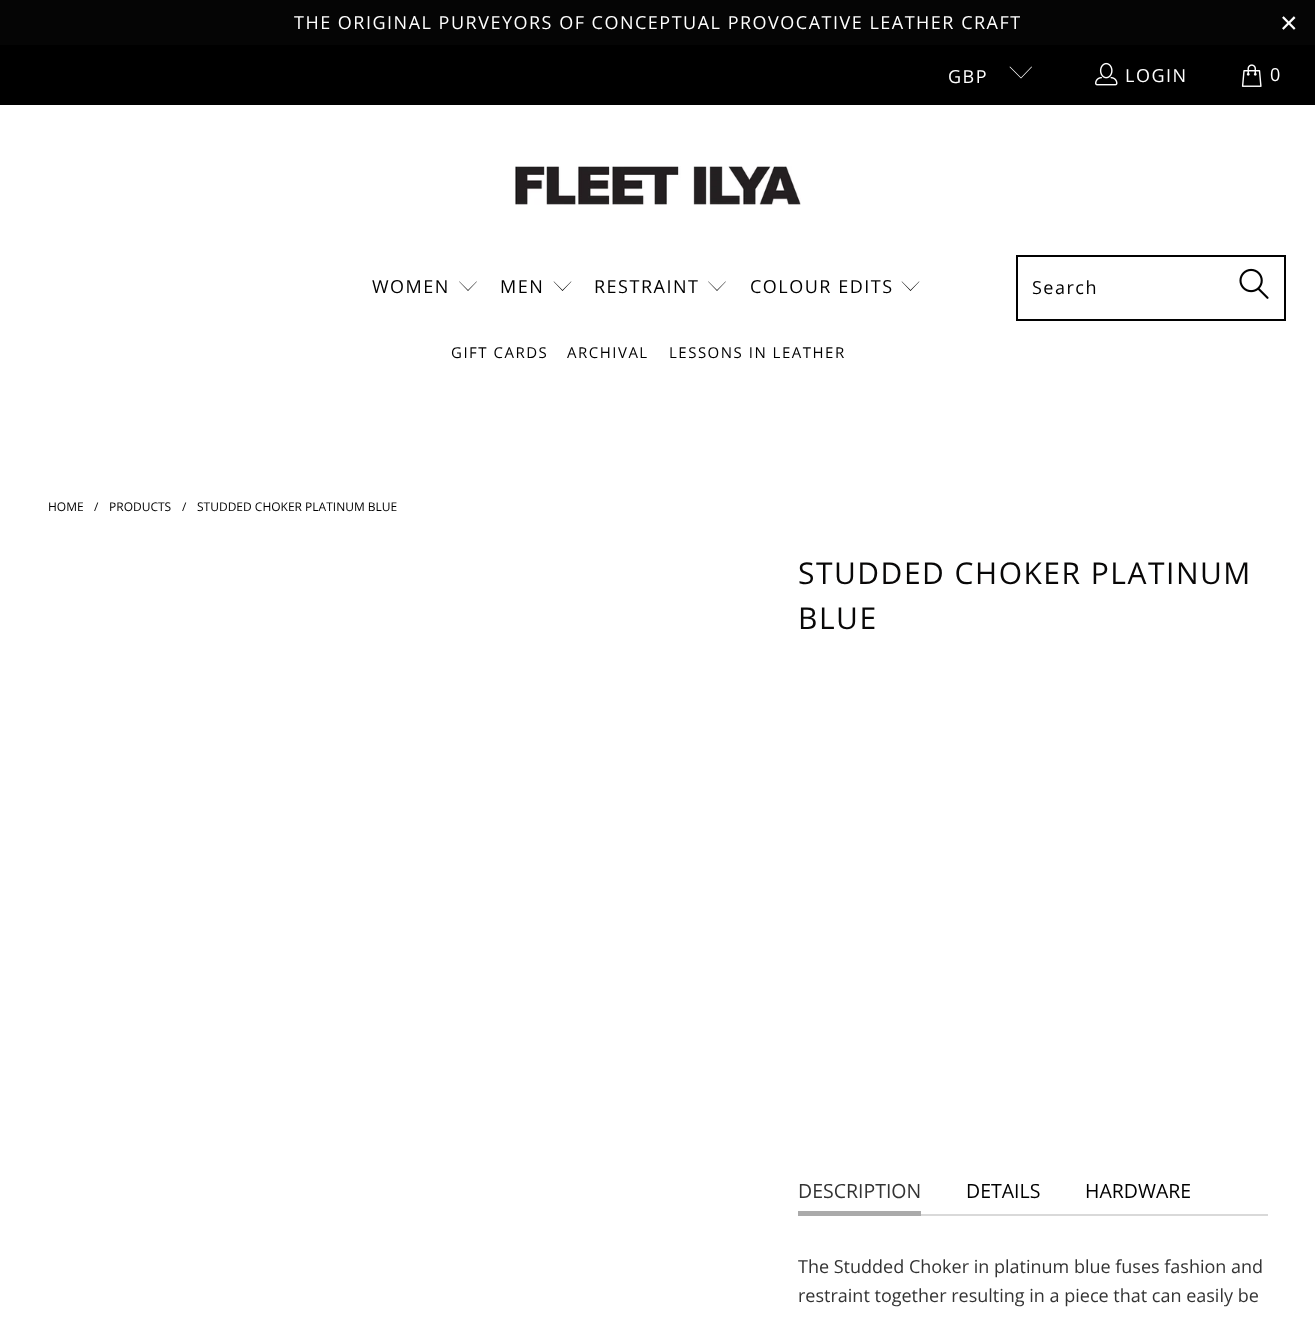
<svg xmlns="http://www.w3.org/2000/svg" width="1315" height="1322">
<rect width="100%" height="100%" fill="#fff"/>
<rect width="1315" height="45" fill="#050505"/>
<text x="294" y="29" style="font-family:Open Sans;font-size:18px;letter-spacing:1.5px;fill:#fff">THE ORIGINAL PURVEYORS OF CONCEPTUAL PROVOCATIVE LEATHER CRAFT</text>
<text x="1280" y="33" style="font-family:Liberation Sans;font-size:30px;letter-spacing:1.5px;fill:#fff">×</text>
<rect y="45" width="1315" height="60" fill="#000"/>
<text x="948" y="83" style="font-family:Open Sans;font-size:18px;letter-spacing:1.5px;fill:#fff">GBP</text>
<path d="M1021 78.5l-11.5-11.5l.5-.5l11 11l10.5-11l.5 .5z" fill="#fff"/>
<image x="1095" y="62" width="23" height="24" href="media/1.png"/>
<text x="1125" y="82" style="font-family:Open Sans;font-size:18px;letter-spacing:1.5px;fill:#fff">LOGIN</text>
<image x="1241" y="64" width="21" height="23" href="media/2.png"/>
<text x="1270" y="81" style="font-family:Open Sans;font-size:18px;letter-spacing:1.5px;fill:#fff">0</text>
<image x="515" y="166" width="286" height="39" href="media/3.png"/>
<text x="372" y="293" style="font-family:Open Sans;font-size:18px;letter-spacing:1.5px;fill:#000">WOMEN</text>
<path d="M468 291l-9-9.5h.5l8.5 8.5l8.5-8.5h.5z" fill="#000"/>
<text x="500" y="293" style="font-family:Open Sans;font-size:18px;letter-spacing:1.5px;fill:#000">MEN</text>
<path d="M562.5 291l-9-9.5h.5l8.5 8.5l8.5-8.5h.5z" fill="#000"/>
<text x="594" y="293" style="font-family:Open Sans;font-size:18px;letter-spacing:1.5px;fill:#000">RESTRAINT</text>
<path d="M717 291l-9-9.5h.5l8.5 8.5l8.5-8.5h.5z" fill="#000"/>
<text x="750" y="293" style="font-family:Open Sans;font-size:18px;letter-spacing:1.5px;fill:#000">COLOUR EDITS</text>
<path d="M910.5 291l-9-9.5h.5l8.5 8.5l8.5-8.5h.5z" fill="#000"/>
<text x="451" y="358" style="font-family:Open Sans;font-size:15px;letter-spacing:1.5px;fill:#000">GIFT CARDS</text>
<text x="567" y="358" style="font-family:Open Sans;font-size:15px;letter-spacing:1.5px;fill:#000">ARCHIVAL</text>
<text x="669" y="358" style="font-family:Open Sans;font-size:15px;letter-spacing:1.5px;fill:#000">LESSONS IN LEATHER</text>
<rect x="1017" y="256" width="268" height="64" fill="none" stroke="#010101" stroke-width="2"/>
<text x="1032" y="294" style="font-family:Open Sans;font-size:18px;letter-spacing:1.5px;fill:#000">Search</text>
<image x="1239" y="268" width="30" height="31" href="media/4.png"/>
<text x="48" y="511" style="font-family:Open Sans;font-size:12px;fill:#000">HOME</text>
<text x="94" y="511" style="font-family:Open Sans;font-size:12px;fill:#000">/</text>
<text x="109" y="511" style="font-family:Open Sans;font-size:12px;fill:#000">PRODUCTS</text>
<text x="182" y="511" style="font-family:Open Sans;font-size:12px;fill:#000">/</text>
<text x="197" y="511" style="font-family:Open Sans;font-size:12px;fill:#000">STUDDED CHOKER PLATINUM BLUE</text>
<text x="798" y="584" style="font-family:Open Sans;font-size:30px;letter-spacing:1.5px;fill:#080707">STUDDED CHOKER PLATINUM</text>
<text x="798" y="629" style="font-family:Open Sans;font-size:30px;letter-spacing:1.5px;fill:#080707">BLUE</text>
<rect x="921" y="1214" width="347" height="2" fill="#d9d9d9"/>
<rect x="798" y="1211" width="123" height="5" fill="#aaa"/>
<text x="798" y="1198" style="font-family:Open Sans;font-size:19.5px;fill:#333">DESCRIPTION</text>
<text x="966" y="1198" style="font-family:Open Sans;font-size:19.5px;fill:#000">DETAILS</text>
<text x="1085" y="1198" style="font-family:Open Sans;font-size:19.5px;fill:#000">HARDWARE</text>
<text x="798" y="1273" style="font-family:Open Sans;font-size:18px;fill:#333">The Studded Choker in platinum blue fuses fashion and</text>
<text x="798" y="1302" style="font-family:Open Sans;font-size:18px;fill:#333">restraint together resulting in a piece that can easily be</text>
</svg>
